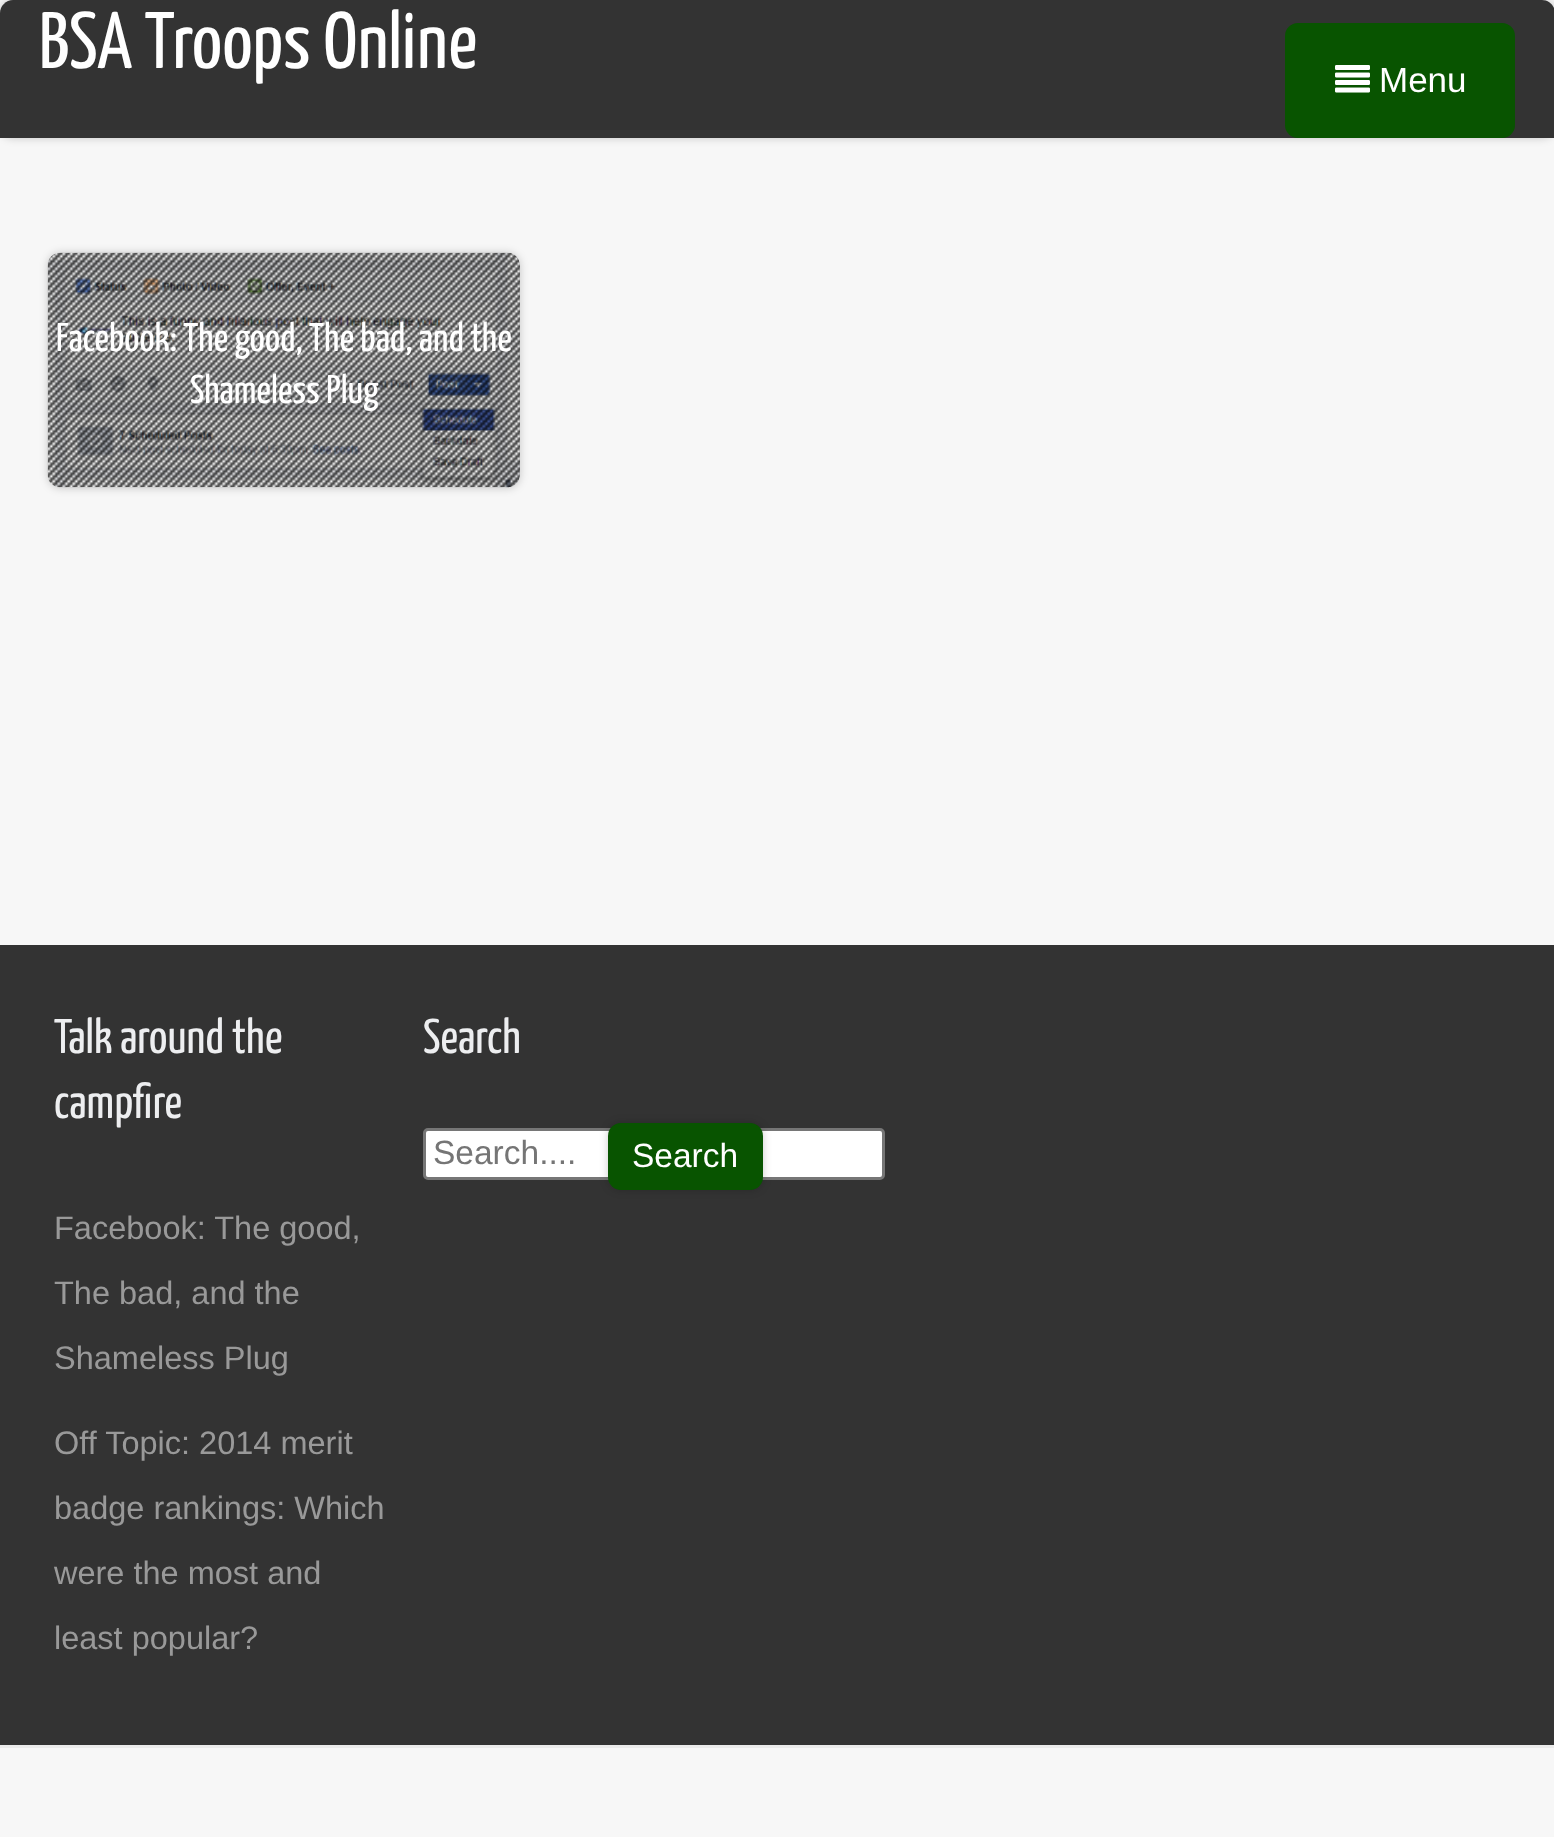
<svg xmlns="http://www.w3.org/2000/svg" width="1554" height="1837">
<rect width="100%" height="100%" fill="#f7f7f7"/>
<rect width="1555" height="138" rx="13" fill="#00000033" filter="blur(4px)"/>
<path d="M13 0h1529c7 0 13 6 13 13v125h-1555v-125c0-7 6-13 13-13z" fill="#333"/>
<text x="39" y="68" style="font-family:Yanone Kaffeesatz;font-size:80px;fill:#fff">BSA Troops Online</text>
<rect x="1285" y="23" width="230" height="115" rx="13" fill="#085400"/>
<image x="1335" y="65" width="35" height="28" href="media/1.png"/>
<text x="1379" y="92" style="font-family:Liberation Sans;font-size:35px;fill:#fff">Menu</text>
<rect x="48" y="253" width="472" height="235" rx="13" fill="#00000033" filter="blur(4px)"/>
<image x="48" y="253" width="472" height="235" href="media/3.png"/>
<image x="47" y="252" width="473" height="236" href="media/2.png"/>
<text x="56" y="351" style="font-family:Yanone Kaffeesatz;font-size:40px;fill:#fff">Facebook: The good, The bad, and the</text>
<text x="190" y="403" style="font-family:Yanone Kaffeesatz;font-size:40px;fill:#fff">Shameless Plug</text>
<rect y="945" width="1554" height="800" fill="#333"/>
<text x="54" y="1053" style="font-family:Yanone Kaffeesatz;font-size:48.75px;fill:#edeef0">Talk around the</text>
<text x="54" y="1118" style="font-family:Yanone Kaffeesatz;font-size:48.75px;fill:#edeef0">campfire</text>
<text x="54" y="1239" style="font-family:Liberation Sans;font-size:32.5px;fill:#999">Facebook: The good,</text>
<text x="54" y="1304" style="font-family:Liberation Sans;font-size:32.5px;fill:#999">The bad, and the</text>
<text x="54" y="1369" style="font-family:Liberation Sans;font-size:32.5px;fill:#999">Shameless Plug</text>
<text x="54" y="1454" style="font-family:Liberation Sans;font-size:32.5px;fill:#999">Off Topic: 2014 merit</text>
<text x="54" y="1519" style="font-family:Liberation Sans;font-size:32.5px;fill:#999">badge rankings: Which</text>
<text x="54" y="1584" style="font-family:Liberation Sans;font-size:32.5px;fill:#999">were the most and</text>
<text x="54" y="1649" style="font-family:Liberation Sans;font-size:32.5px;fill:#999">least popular?</text>
<text x="423" y="1053" style="font-family:Yanone Kaffeesatz;font-size:48.75px;fill:#edeef0">Search</text>
<rect x="424.5" y="1129.5" width="459" height="49" rx="3.5" fill="#fff" stroke="#767676" stroke-width="3"/>
<text x="433" y="1164" style="font-family:Liberation Sans;font-size:33.5px;fill:#757575">Search....</text>
<rect x="608" y="1123" width="155" height="67" rx="13" fill="#00000033" filter="blur(4px)"/>
<rect x="608" y="1123" width="155" height="67" rx="13" fill="#085400"/>
<text x="632" y="1167" style="font-family:Liberation Sans;font-size:33.5px;fill:#fff">Search</text>
<rect y="1745" width="1554" height="3" fill="#ebebeb"/>
</svg>
